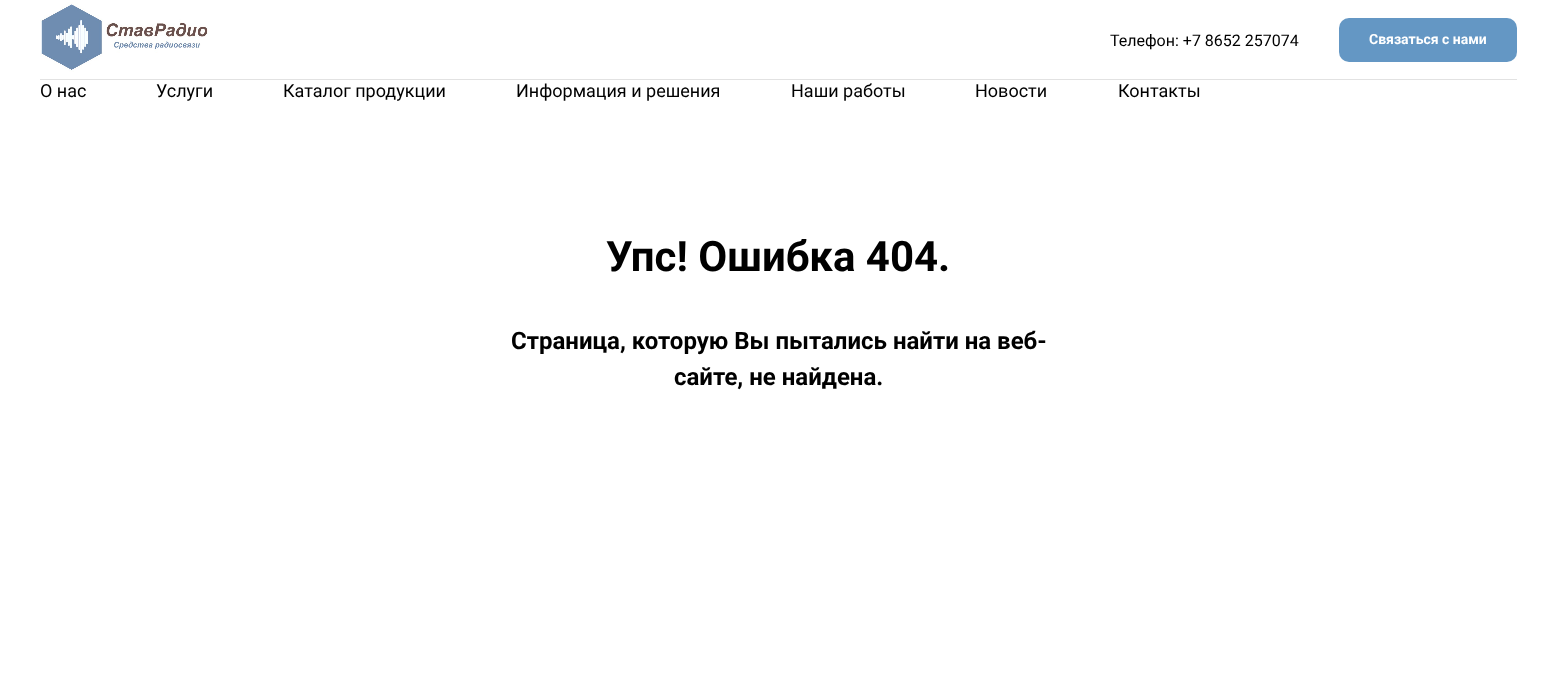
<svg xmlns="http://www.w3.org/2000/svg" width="1557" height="681">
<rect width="100%" height="100%" fill="#fff"/>
<image x="40" y="2" width="168" height="70" href="media/1.png"/>
<text x="1110" y="46" style="font-family:Roboto;font-size:16px;fill:#000">Телефон: +7 8652 257074</text>
<rect x="1339" y="18" width="178" height="44" rx="10" fill="#6497c4"/>
<text x="1369" y="44" style="font-family:Roboto;font-size:14px;font-weight:bold;fill:#fff">Связаться с нами</text>
<rect x="40" y="79" width="1477" height="1" fill="#e2e2e2"/>
<text x="40" y="97" style="font-family:Roboto;font-size:18px;fill:#000">О нас</text>
<text x="156" y="97" style="font-family:Roboto;font-size:18px;fill:#000">Услуги</text>
<text x="283" y="97" style="font-family:Roboto;font-size:18px;fill:#000">Каталог продукции</text>
<text x="516" y="97" style="font-family:Roboto;font-size:18px;fill:#000">Информация и решения</text>
<text x="791" y="97" style="font-family:Roboto;font-size:18px;fill:#000">Наши работы</text>
<text x="975" y="97" style="font-family:Roboto;font-size:18px;fill:#000">Новости</text>
<text x="1118" y="97" style="font-family:Roboto;font-size:18px;fill:#000">Контакты</text>
<text x="606" y="271" style="font-family:Roboto;font-size:42px;font-weight:bold;fill:#000">Упс! Ошибка 404.</text>
<text x="511" y="349" style="font-family:Roboto;font-size:24px;font-weight:bold;fill:#000">Страница, которую Вы пытались найти на веб-</text>
<text x="674" y="385" style="font-family:Roboto;font-size:24px;font-weight:bold;fill:#000">сайте, не найдена.</text>
</svg>
